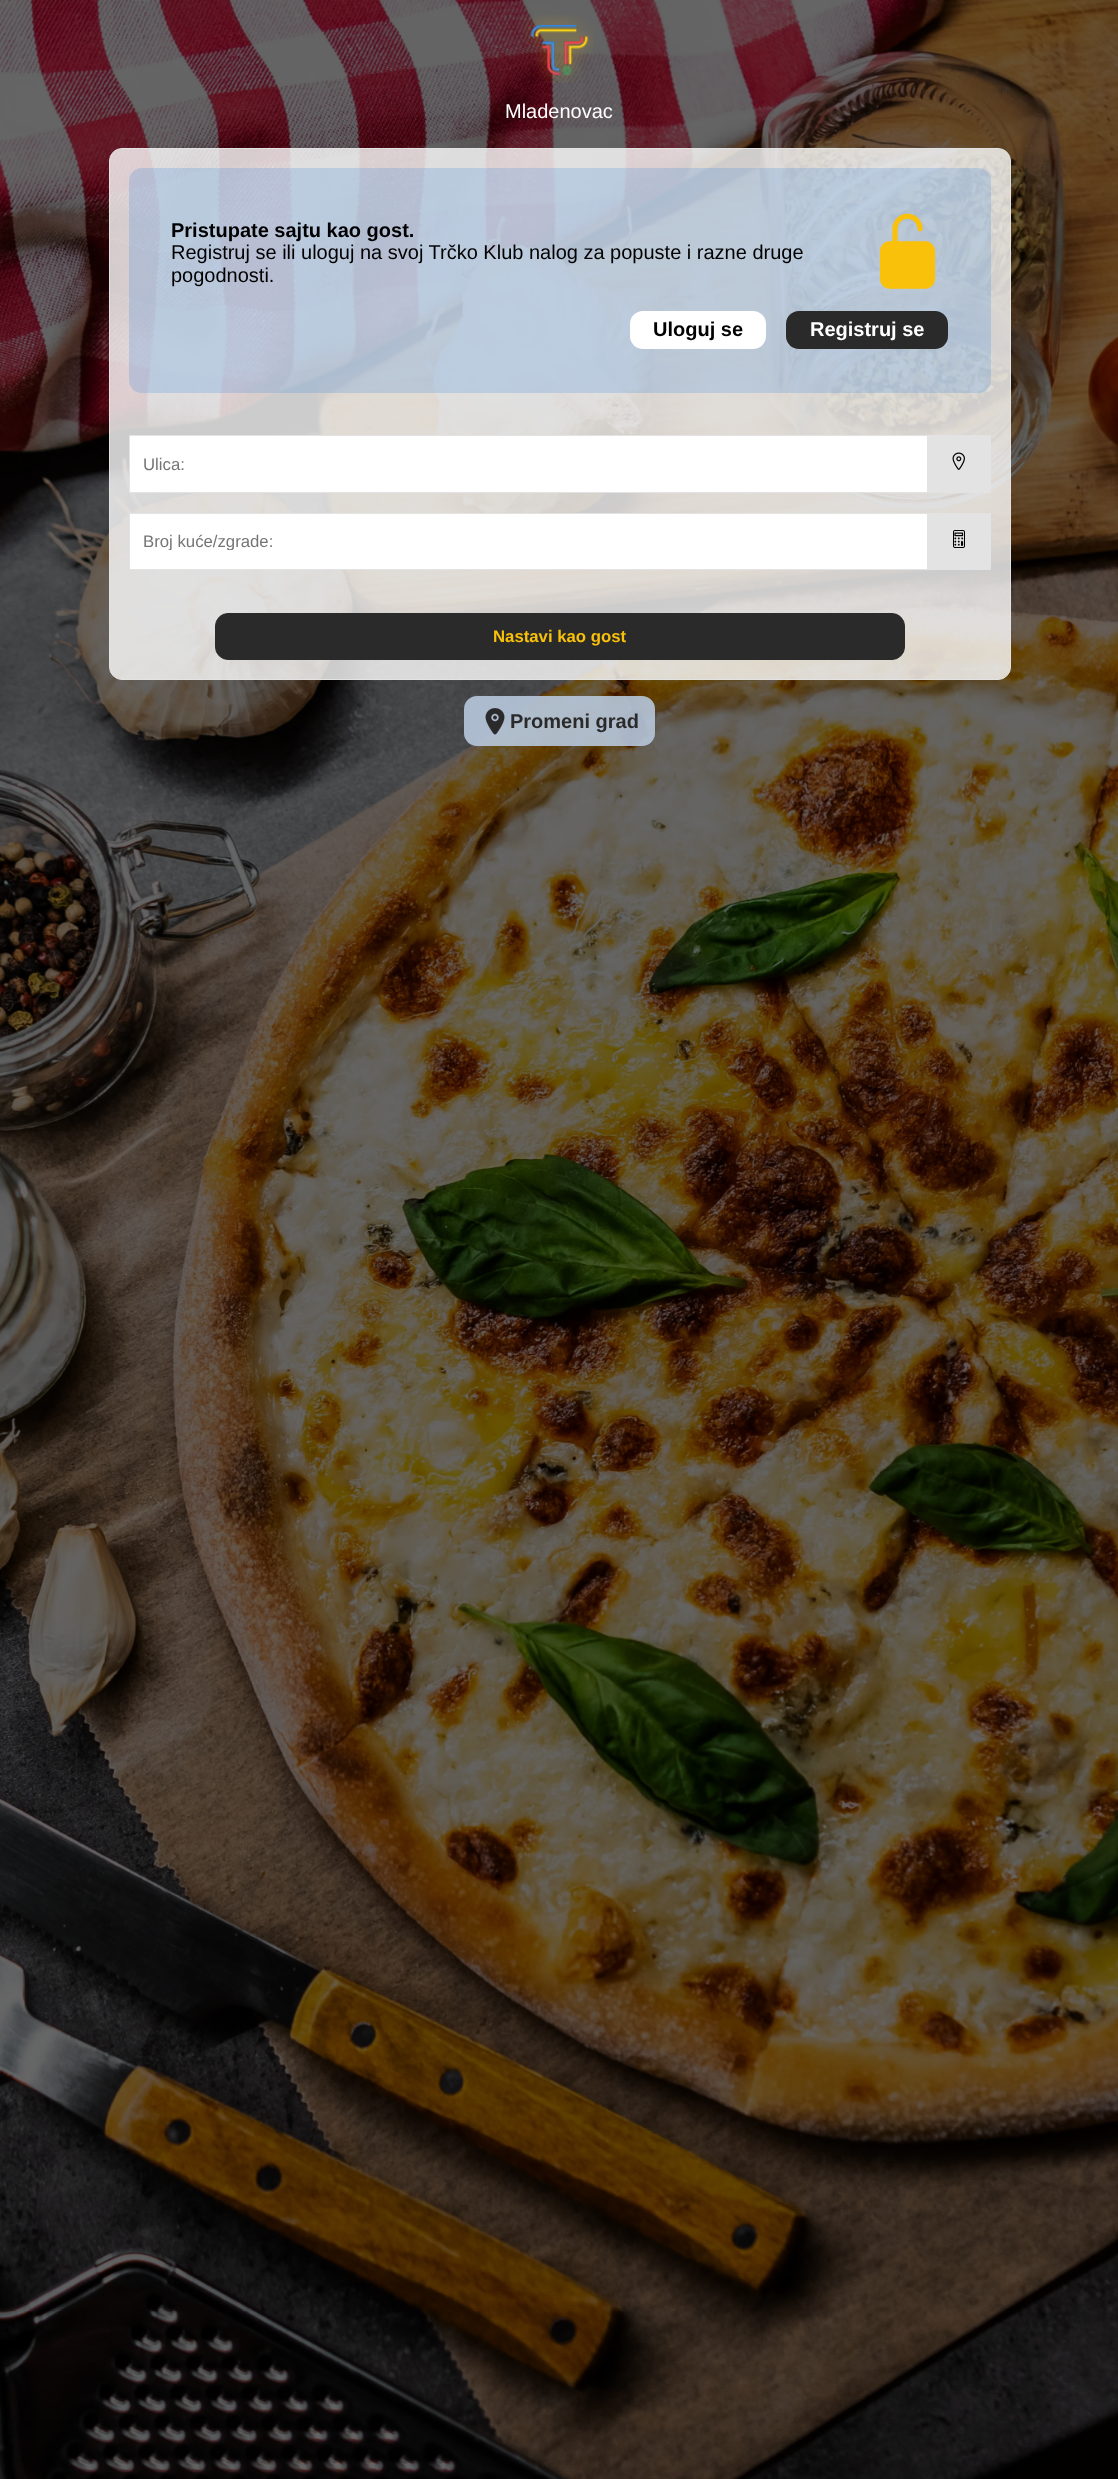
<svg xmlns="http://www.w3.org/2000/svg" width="1118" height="2479">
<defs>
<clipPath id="clip1"><rect x="143" y="531" width="753" height="19"/></clipPath>
</defs>
<rect width="100%" height="100%" fill="#fff"/>
<image x="0" y="0" width="1118" height="2479" href="media/1.png"/>
<image x="524" y="15" width="70" height="68" href="media/2.png"/>
<text x="505" y="118" style="font-family:Liberation Sans;font-size:20px;fill:#fff">Mladenovac</text>
<rect x="109.5" y="148.5" width="901" height="531" rx="12.5" fill="#ffffffcc" stroke="#e3e3e3"/>
<rect x="129" y="168" width="862" height="225" rx="13" fill="#2e82e233"/>
<text x="171" y="237" style="font-family:Liberation Sans;font-size:20px;font-weight:bold;fill:#000">Pristupate sajtu kao gost.</text>
<text x="171" y="259" style="font-family:Liberation Sans;font-size:20px;fill:#000">Registruj se ili uloguj na svoj Trčko Klub nalog za popuste i razne druge</text>
<text x="171" y="282" style="font-family:Liberation Sans;font-size:20px;fill:#000">pogodnosti.</text>
<image x="879" y="213" width="57" height="76" href="media/3.png"/>
<rect x="630" y="311" width="136" height="38" rx="13" fill="#fff"/>
<text x="653" y="336" style="font-family:Liberation Sans;font-size:20px;font-weight:bold;fill:#000">Uloguj se</text>
<rect x="786" y="311" width="162" height="38" rx="13" fill="#2a2a2a"/>
<text x="810" y="336" style="font-family:Liberation Sans;font-size:20px;font-weight:bold;fill:#fff">Registruj se</text>
<rect x="129.5" y="435.5" width="798" height="57" fill="#fff" stroke="#e3e3e3"/>
<text x="143" y="470" style="font-family:Liberation Sans;font-size:16.75px;fill:#757575">Ulica:</text>
<rect x="928" y="435" width="63" height="58" fill="#e3e3e3"/>
<image x="952" y="452" width="13" height="18" href="media/4.png"/>
<rect x="129.5" y="513.5" width="798" height="56" fill="#fff" stroke="#e3e3e3"/>
<g clip-path="url(#clip1)">
<text x="143" y="547" style="font-family:Liberation Sans;font-size:16.75px;fill:#757575">Broj kuće/zgrade:</text>
</g>
<rect x="928" y="513" width="63" height="57" fill="#e3e3e3"/>
<image x="953" y="530" width="12" height="18" href="media/5.png"/>
<rect x="215.5" y="613.5" width="689" height="46" rx="12.5" fill="#2a2a2a" stroke="#2a2a2a"/>
<text x="493" y="642" style="font-family:Liberation Sans;font-size:16.75px;font-weight:bold;fill:#f9c10a">Nastavi kao gost</text>
<rect x="464" y="696" width="191" height="50" rx="13" fill="#b7c8dbe6"/>
<image x="485" y="708" width="20" height="27" href="media/6.png"/>
<text x="510" y="728" style="font-family:Liberation Sans;font-size:20px;font-weight:bold;fill:#2a2a2a">Promeni grad</text>
</svg>
